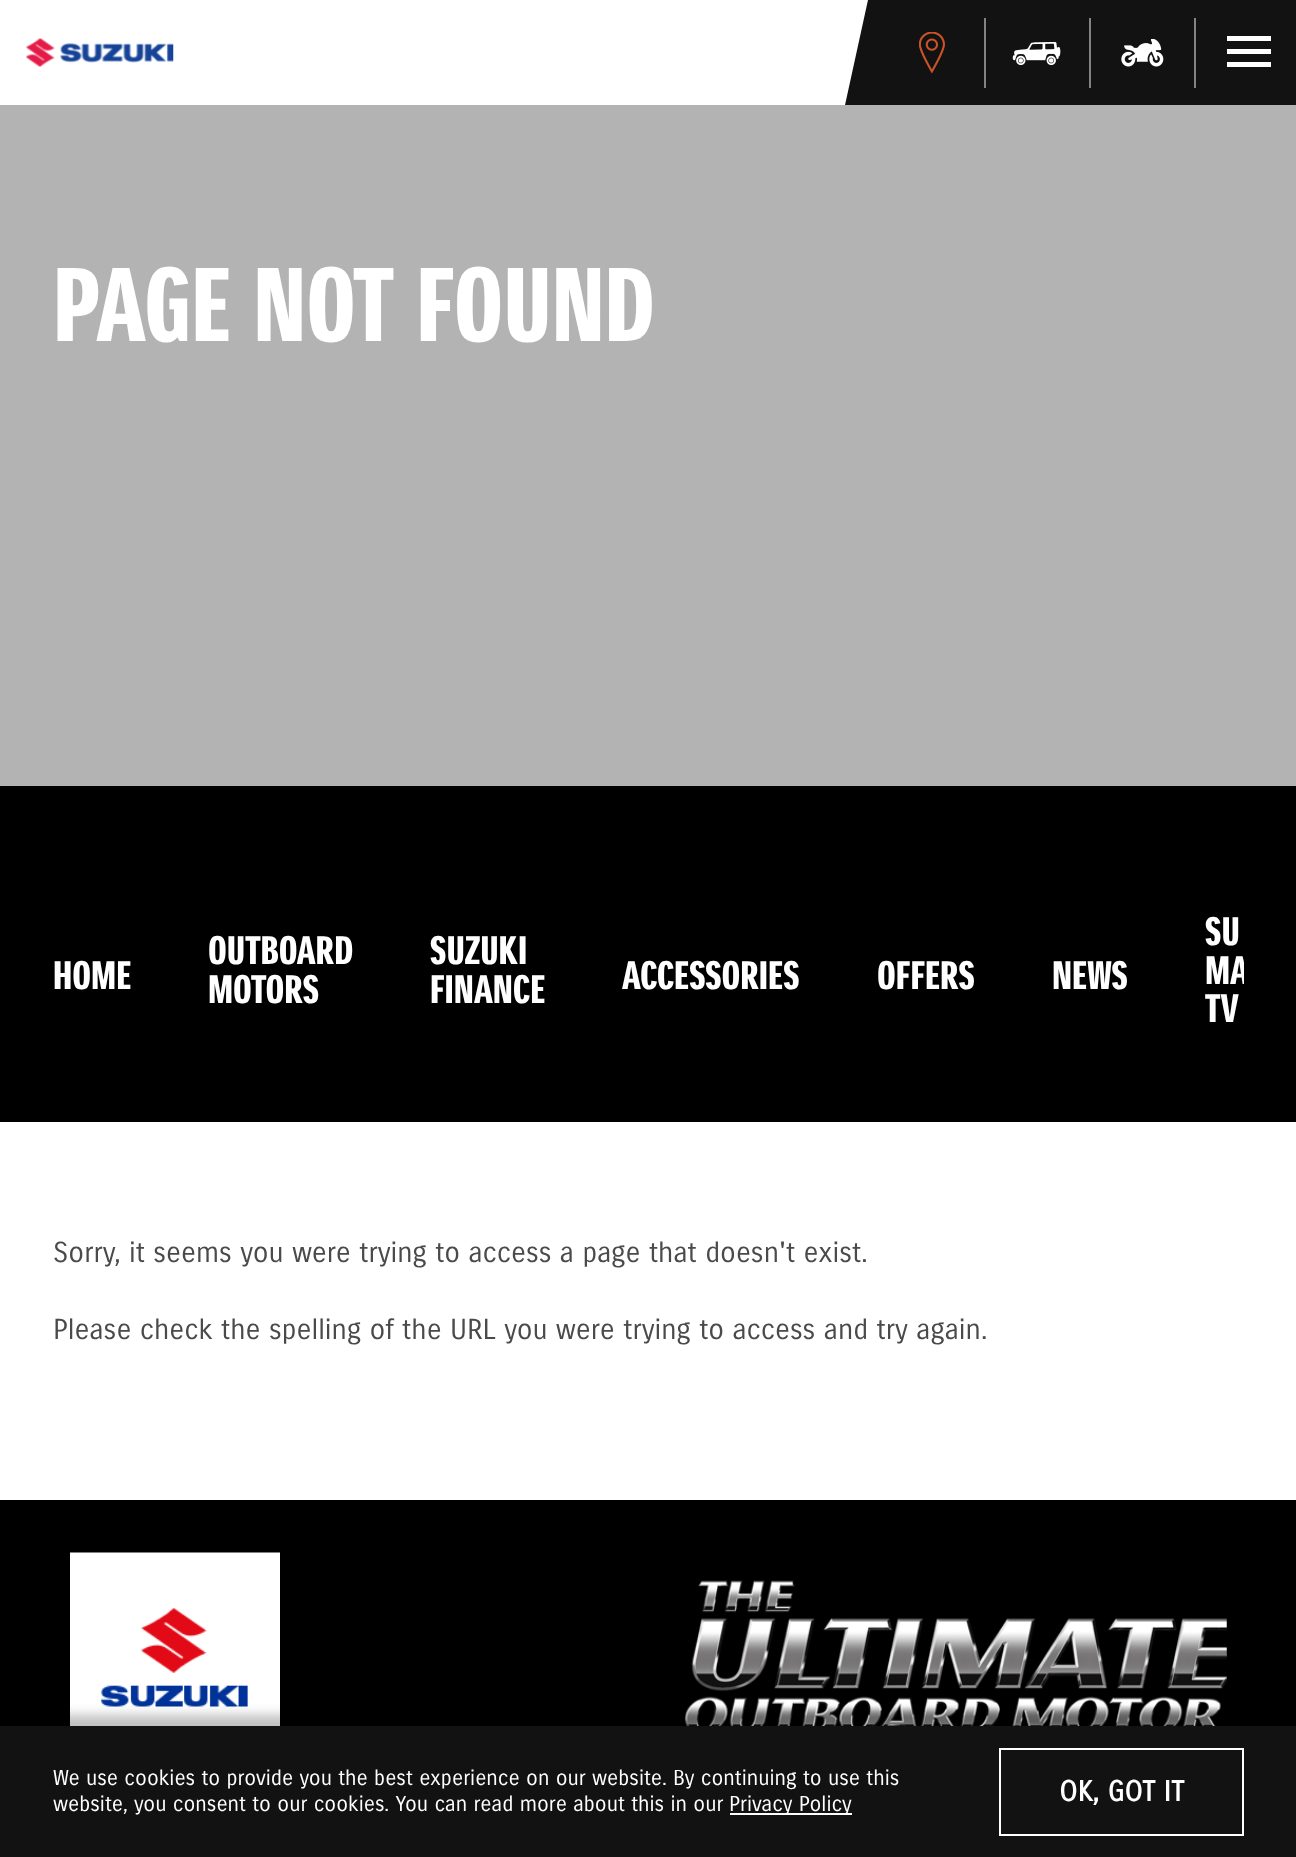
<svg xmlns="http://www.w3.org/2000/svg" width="1296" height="1857">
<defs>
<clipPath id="clip1"><rect x="53" y="898" width="1191" height="154"/></clipPath>
</defs>
<rect width="100%" height="100%" fill="#fff"/>
<image x="26" y="38" width="148" height="29" href="media/1.png"/>
<rect x="845" width="451" height="105" fill="#121212"/>
<path d="M845 0h23l-23 105z" fill="#fff"/>
<rect x="984" y="18" width="2" height="70" fill="#838383"/>
<image x="919" y="32" width="26" height="42" href="media/2.png"/>
<rect x="1089" y="18" width="2" height="70" fill="#838383"/>
<image x="1012" y="41" width="49" height="25" href="media/3.png"/>
<rect x="1194" y="18" width="2" height="70" fill="#838383"/>
<image x="1121" y="39" width="43" height="28" href="media/4.png"/>
<rect x="1227" y="36" width="44" height="5" fill="#fff"/>
<rect x="1227" y="49" width="44" height="5" fill="#fff"/>
<rect x="1227" y="62" width="44" height="5" fill="#fff"/>
<rect y="105" width="1296" height="681" fill="#b3b3b3"/>
<text x="53" y="341" style="font-family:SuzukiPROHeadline;font-size:101.5px;font-weight:bold;fill:#fff">PAGE NOT FOUND</text>
<rect y="786" width="1296" height="336" fill="#000"/>
<text x="53" y="989" style="font-family:SuzukiPROHeadline;font-size:38.5px;font-weight:bold;fill:#fff">HOME</text>
<text x="208" y="964" style="font-family:SuzukiPROHeadline;font-size:38.5px;font-weight:bold;fill:#fff">OUTBOARD</text>
<text x="208" y="1003" style="font-family:SuzukiPROHeadline;font-size:38.5px;font-weight:bold;fill:#fff">MOTORS</text>
<text x="430" y="964" style="font-family:SuzukiPROHeadline;font-size:38.5px;font-weight:bold;fill:#fff">SUZUKI</text>
<text x="430" y="1003" style="font-family:SuzukiPROHeadline;font-size:38.5px;font-weight:bold;fill:#fff">FINANCE</text>
<text x="622" y="989" style="font-family:SuzukiPROHeadline;font-size:38.5px;font-weight:bold;fill:#fff">ACCESSORIES</text>
<text x="877" y="989" style="font-family:SuzukiPROHeadline;font-size:38.5px;font-weight:bold;fill:#fff">OFFERS</text>
<text x="1052" y="989" style="font-family:SuzukiPROHeadline;font-size:38.5px;font-weight:bold;fill:#fff">NEWS</text>
<text x="1205" y="945" style="font-family:SuzukiPROHeadline;font-size:38.5px;font-weight:bold;fill:#fff">SU</text>
<g clip-path="url(#clip1)">
<text x="1205" y="984" style="font-family:SuzukiPROHeadline;font-size:38.5px;font-weight:bold;fill:#fff">MA</text>
</g>
<text x="1205" y="1022" style="font-family:SuzukiPROHeadline;font-size:38.5px;font-weight:bold;fill:#fff">TV</text>
<text x="53" y="1262" style="font-family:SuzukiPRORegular;font-size:28px;fill:#4a4a4a">Sorry, it seems you were trying to access a page that doesn't exist.</text>
<text x="53" y="1339" style="font-family:SuzukiPRORegular;font-size:28px;fill:#4a4a4a">Please check the spelling of the URL you were trying to access and try again.</text>
<rect y="1500" width="1296" height="226" fill="#000"/>
<image x="70" y="1552" width="210" height="174" href="media/5.png"/>
<image x="684" y="1580" width="543" height="146" href="media/6.png"/>
<rect y="1715" width="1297" height="133" fill="#00000040" filter="blur(6px)"/>
<rect y="1726" width="1296" height="131" fill="#121212"/>
<text x="53" y="1785" style="font-family:SuzukiPRORegular;font-size:21px;fill:#fff">We use cookies to provide you the best experience on our website. By continuing to use this</text>
<text x="53" y="1811" style="font-family:SuzukiPRORegular;font-size:21px;fill:#fff">website, you consent to our cookies. You can read more about this in our</text>
<rect x="730" y="1813" width="122" height="2" fill="#fff"/>
<text x="729" y="1811" style="font-family:SuzukiPRORegular;font-size:21px;fill:#fff">Privacy Policy</text>
<rect x="1000" y="1749" width="243" height="86" fill="none" stroke="#fff" stroke-width="2"/>
<text x="1059" y="1801" style="font-family:SuzukiPRORegular;font-size:28px;font-weight:bold;fill:#fff">OK, GOT IT</text>
</svg>
